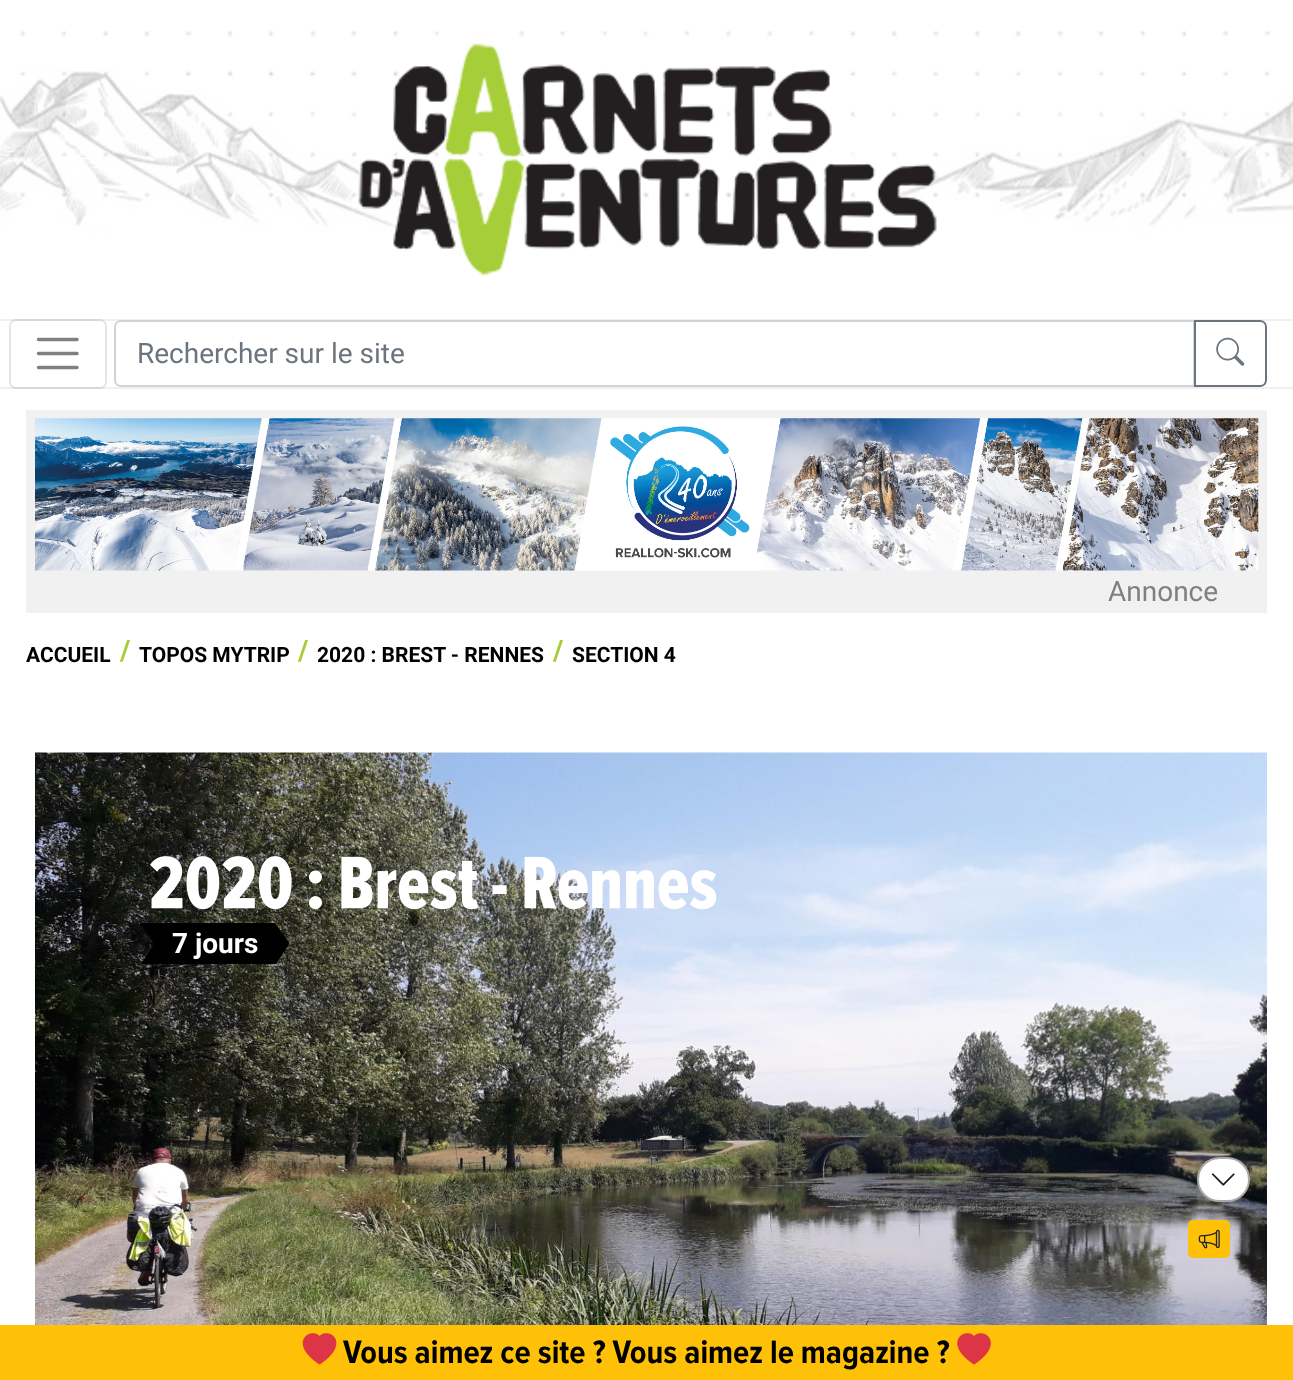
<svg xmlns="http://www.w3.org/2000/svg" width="1293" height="1380">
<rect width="100%" height="100%" fill="#fff"/>
<image x="0" y="31" width="1293" height="204" href="media/1.png"/>
<image x="358" y="43" width="579" height="233" href="media/2.png"/>
<rect y="319" width="1293" height="2" fill="#f0f0f0"/>
<rect y="387" width="1293" height="2" fill="#f0f0f0"/>
<rect x="10" y="320" width="96" height="68" rx="6" fill="none" stroke="#0000001a" stroke-width="2"/>
<path d="M38.5 339.5h38.5m-38.5 14h38.5m-38.5 14h38.5" fill="none" stroke="#808080" stroke-width="3.5" stroke-linecap="round"/>
<path d="M121 321h1073v65h-1073c-3.5 0-6-2.5-6-6v-53c0-3.5 2.5-6 6-6z" fill="none" stroke="#ced4da" stroke-width="2"/>
<text x="137" y="363" style="font-family:Roboto;font-size:28px;fill:#6c757d">Rechercher sur le site</text>
<path d="M1195 321h65c3.5 0 6 2.5 6 6v53c0 3.5-2.5 6-6 6h-65z" fill="#fff" stroke="#6c757d" stroke-width="2"/>
<image x="1216" y="337" width="29" height="29" href="media/3.png"/>
<rect x="26" y="410" width="1241" height="203" fill="#f1f1f1"/>
<image x="35" y="418" width="1224" height="153" href="media/4.png"/>
<text x="1108" y="601" style="font-family:Roboto;font-size:28px;fill:#808080">Annonce</text>
<text x="26" y="662" style="font-family:Roboto;font-size:21px;font-weight:bold;fill:#000">ACCUEIL</text>
<text x="120" y="660" style="font-family:Roboto;font-size:28px;font-weight:bold;fill:#a6ce39">/</text>
<text x="139" y="662" style="font-family:Roboto;font-size:21px;font-weight:bold;fill:#000">TOPOS MYTRIP</text>
<text x="298" y="660" style="font-family:Roboto;font-size:28px;font-weight:bold;fill:#a6ce39">/</text>
<text x="317" y="662" style="font-family:Roboto;font-size:21px;font-weight:bold;fill:#000">2020 : BREST - RENNES</text>
<text x="553" y="660" style="font-family:Roboto;font-size:28px;font-weight:bold;fill:#a6ce39">/</text>
<text x="572" y="662" style="font-family:Roboto;font-size:21px;font-weight:bold;fill:#000">SECTION 4</text>
<image x="35" y="752" width="1232" height="573" href="media/5.png"/>
<image x="150" y="856" width="172" height="54" href="media/6.png"/>
<image x="341" y="856" width="376" height="54" href="media/7.png"/>
<path d="M140 923h135l14 20v1l-13 20h-135l13-20z" fill="#000"/>
<text x="172" y="953" style="font-family:Roboto;font-size:28px;font-weight:bold;fill:#fff">7 jours</text>
<rect x="1198" y="1158" width="51" height="43" rx="21.5" fill="#fff" stroke="#a9a9a9" stroke-width="2"/>
<image x="1211" y="1173" width="24" height="13" href="media/8.png"/>
<rect x="1189" y="1221" width="40" height="36" rx="4" fill="#ffc107" stroke="#ffc107" stroke-width="2"/>
<image x="1198" y="1229" width="22" height="20" href="media/9.png"/>
<rect y="1325" width="1293" height="55" fill="#ffc107"/>
<image x="302" y="1333" width="35" height="32" href="media/10.png"/>
<text x="343" y="1363" style="font-family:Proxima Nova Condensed;font-size:33.6px;font-weight:bold;fill:#000">Vous aimez ce site ? Vous aimez le magazine ?</text>
<image x="957" y="1333" width="34" height="32" href="media/11.png"/>
</svg>
